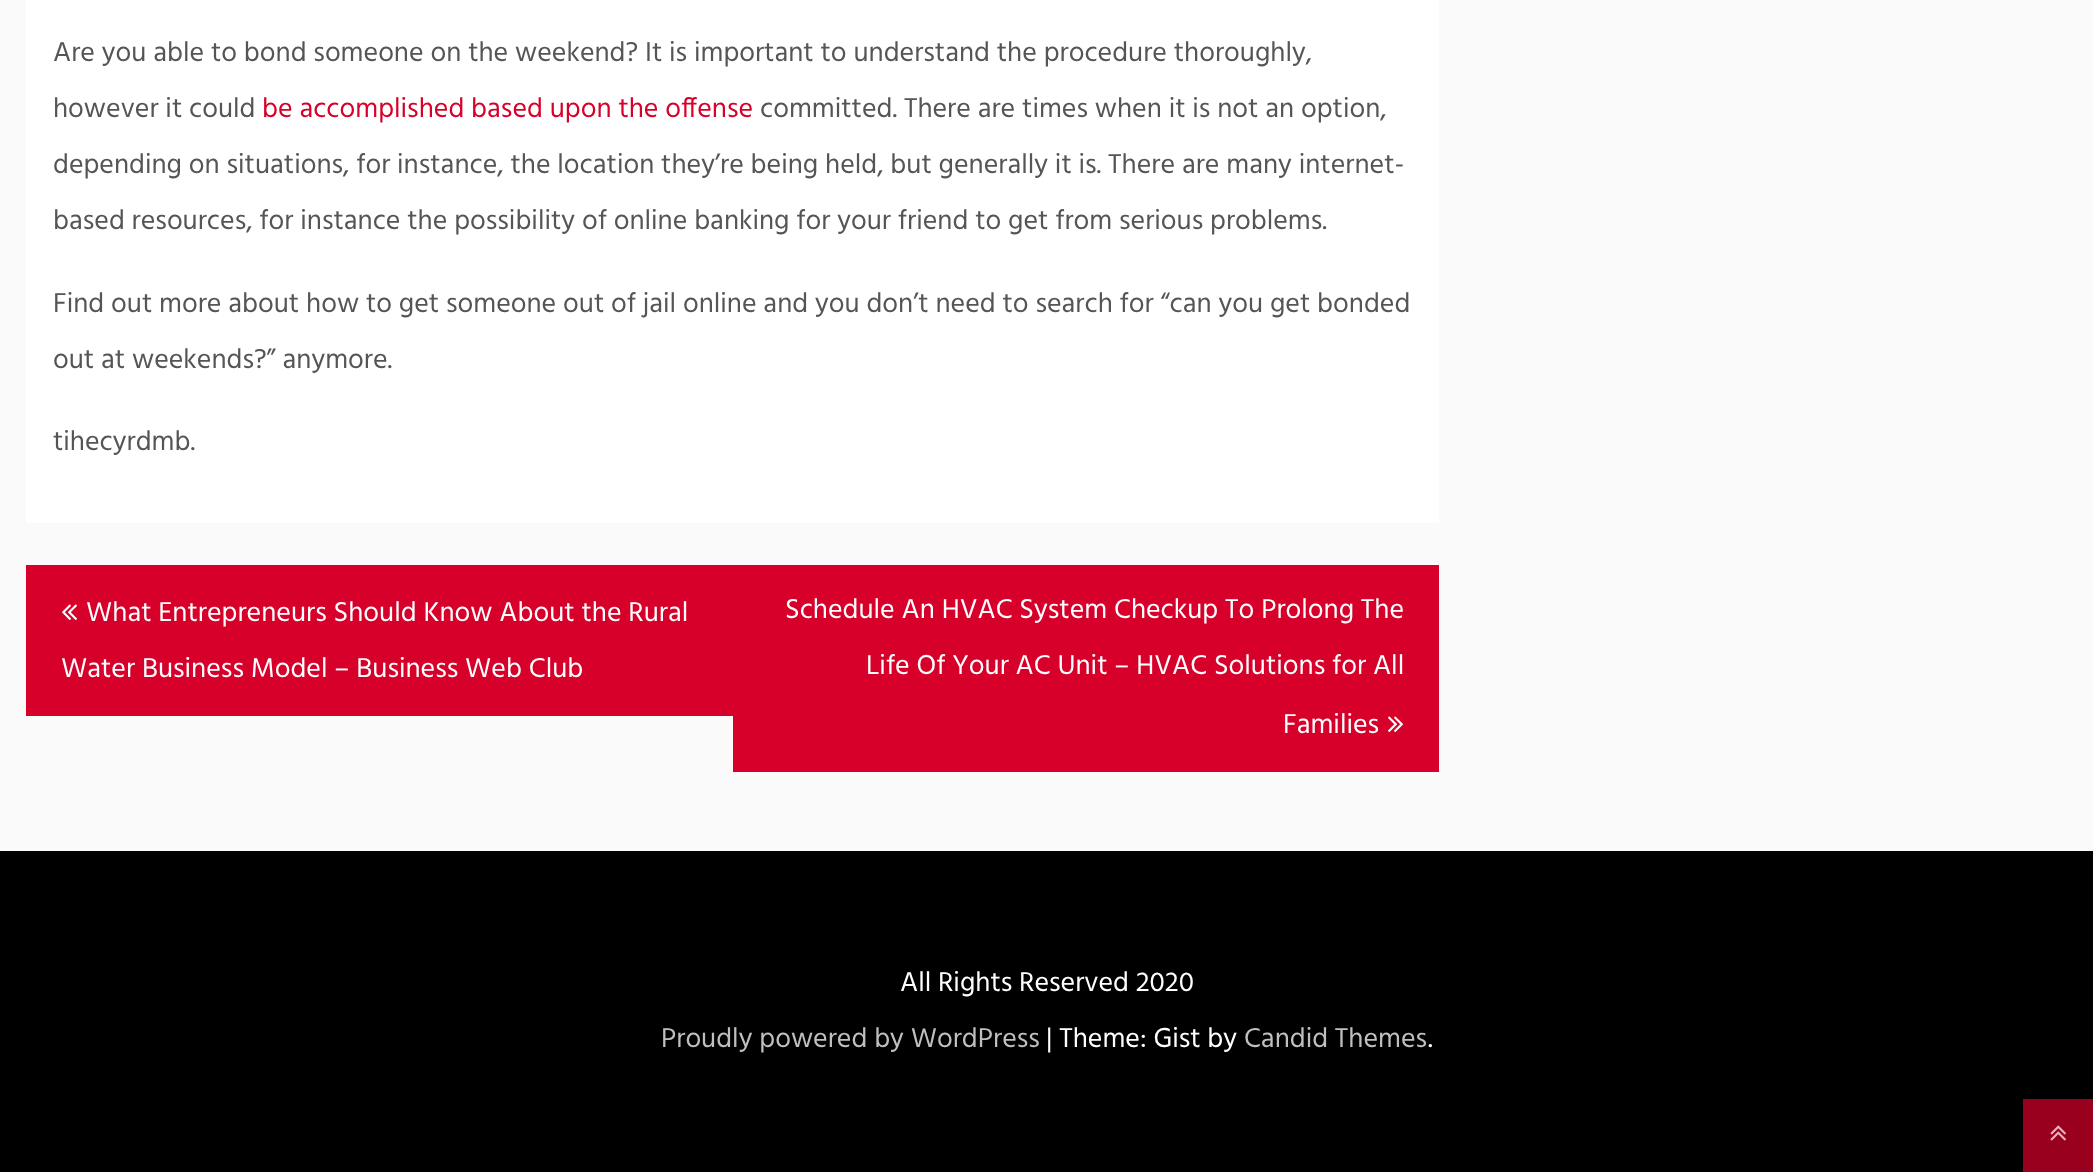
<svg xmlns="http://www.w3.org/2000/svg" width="2093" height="1172">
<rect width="100%" height="100%" fill="#fafafa"/>
<rect x="26" width="1413" height="523" fill="#fff"/>
<text x="53" y="61" style="font-family:Hind;font-size:28px;fill:#555">Are you able to bond someone on the weekend? It is important to understand the procedure thoroughly,</text>
<text x="53" y="117" style="font-family:Hind;font-size:28px;fill:#555">however it could</text>
<text x="262" y="117" style="font-family:Hind;font-size:28px;fill:#d6002a">be accomplished based upon the offense</text>
<text x="760" y="117" style="font-family:Hind;font-size:28px;fill:#555">committed. There are times when it is not an option,</text>
<text x="53" y="173" style="font-family:Hind;font-size:28px;fill:#555">depending on situations, for instance, the location they’re being held, but generally it is. There are many internet-</text>
<text x="53" y="229" style="font-family:Hind;font-size:28px;fill:#555">based resources, for instance the possibility of online banking for your friend to get from serious problems.</text>
<text x="53" y="312" style="font-family:Hind;font-size:28px;fill:#555">Find out more about how to get someone out of jail online and you don’t need to search for “can you get bonded</text>
<text x="53" y="368" style="font-family:Hind;font-size:28px;fill:#555">out at weekends?” anymore.</text>
<text x="53" y="450" style="font-family:Hind;font-size:28px;fill:#555">tihecyrdmb.</text>
<rect x="26" y="565" width="707" height="151" fill="#d6002a"/>
<image x="62" y="604" width="15" height="16" href="media/1.png"/>
<text x="86" y="621" style="font-family:Hind;font-size:28px;fill:#fff">What Entrepreneurs Should Know About the Rural</text>
<text x="61" y="677" style="font-family:Hind;font-size:28px;fill:#fff">Water Business Model – Business Web Club</text>
<rect x="733" y="565" width="706" height="207" fill="#d6002a"/>
<text x="785" y="618" style="font-family:Hind;font-size:28px;fill:#fff">Schedule An HVAC System Checkup To Prolong The</text>
<text x="866" y="674" style="font-family:Hind;font-size:28px;fill:#fff">Life Of Your AC Unit – HVAC Solutions for All</text>
<text x="1283" y="733" style="font-family:Hind;font-size:28px;fill:#fff">Families</text>
<image x="1388" y="716" width="15" height="16" href="media/2.png"/>
<rect y="851" width="2093" height="321" fill="#000"/>
<text x="900" y="991" style="font-family:Hind;font-size:28px;fill:#fff">All Rights Reserved 2020</text>
<text x="661" y="1047" style="font-family:Hind;font-size:28px;fill:#bfbfbf">Proudly powered by WordPress</text>
<text x="1046" y="1047" style="font-family:Hind;font-size:28px;fill:#fff">| Theme: Gist by</text>
<text x="1244" y="1047" style="font-family:Hind;font-size:28px;fill:#bfbfbf">Candid Themes</text>
<text x="1428" y="1047" style="font-family:Hind;font-size:28px;fill:#fff">.</text>
<rect x="2023" y="1099" width="70" height="73" fill="#98001e"/>
<image x="2050" y="1125" width="16" height="16" href="media/3.png"/>
</svg>
